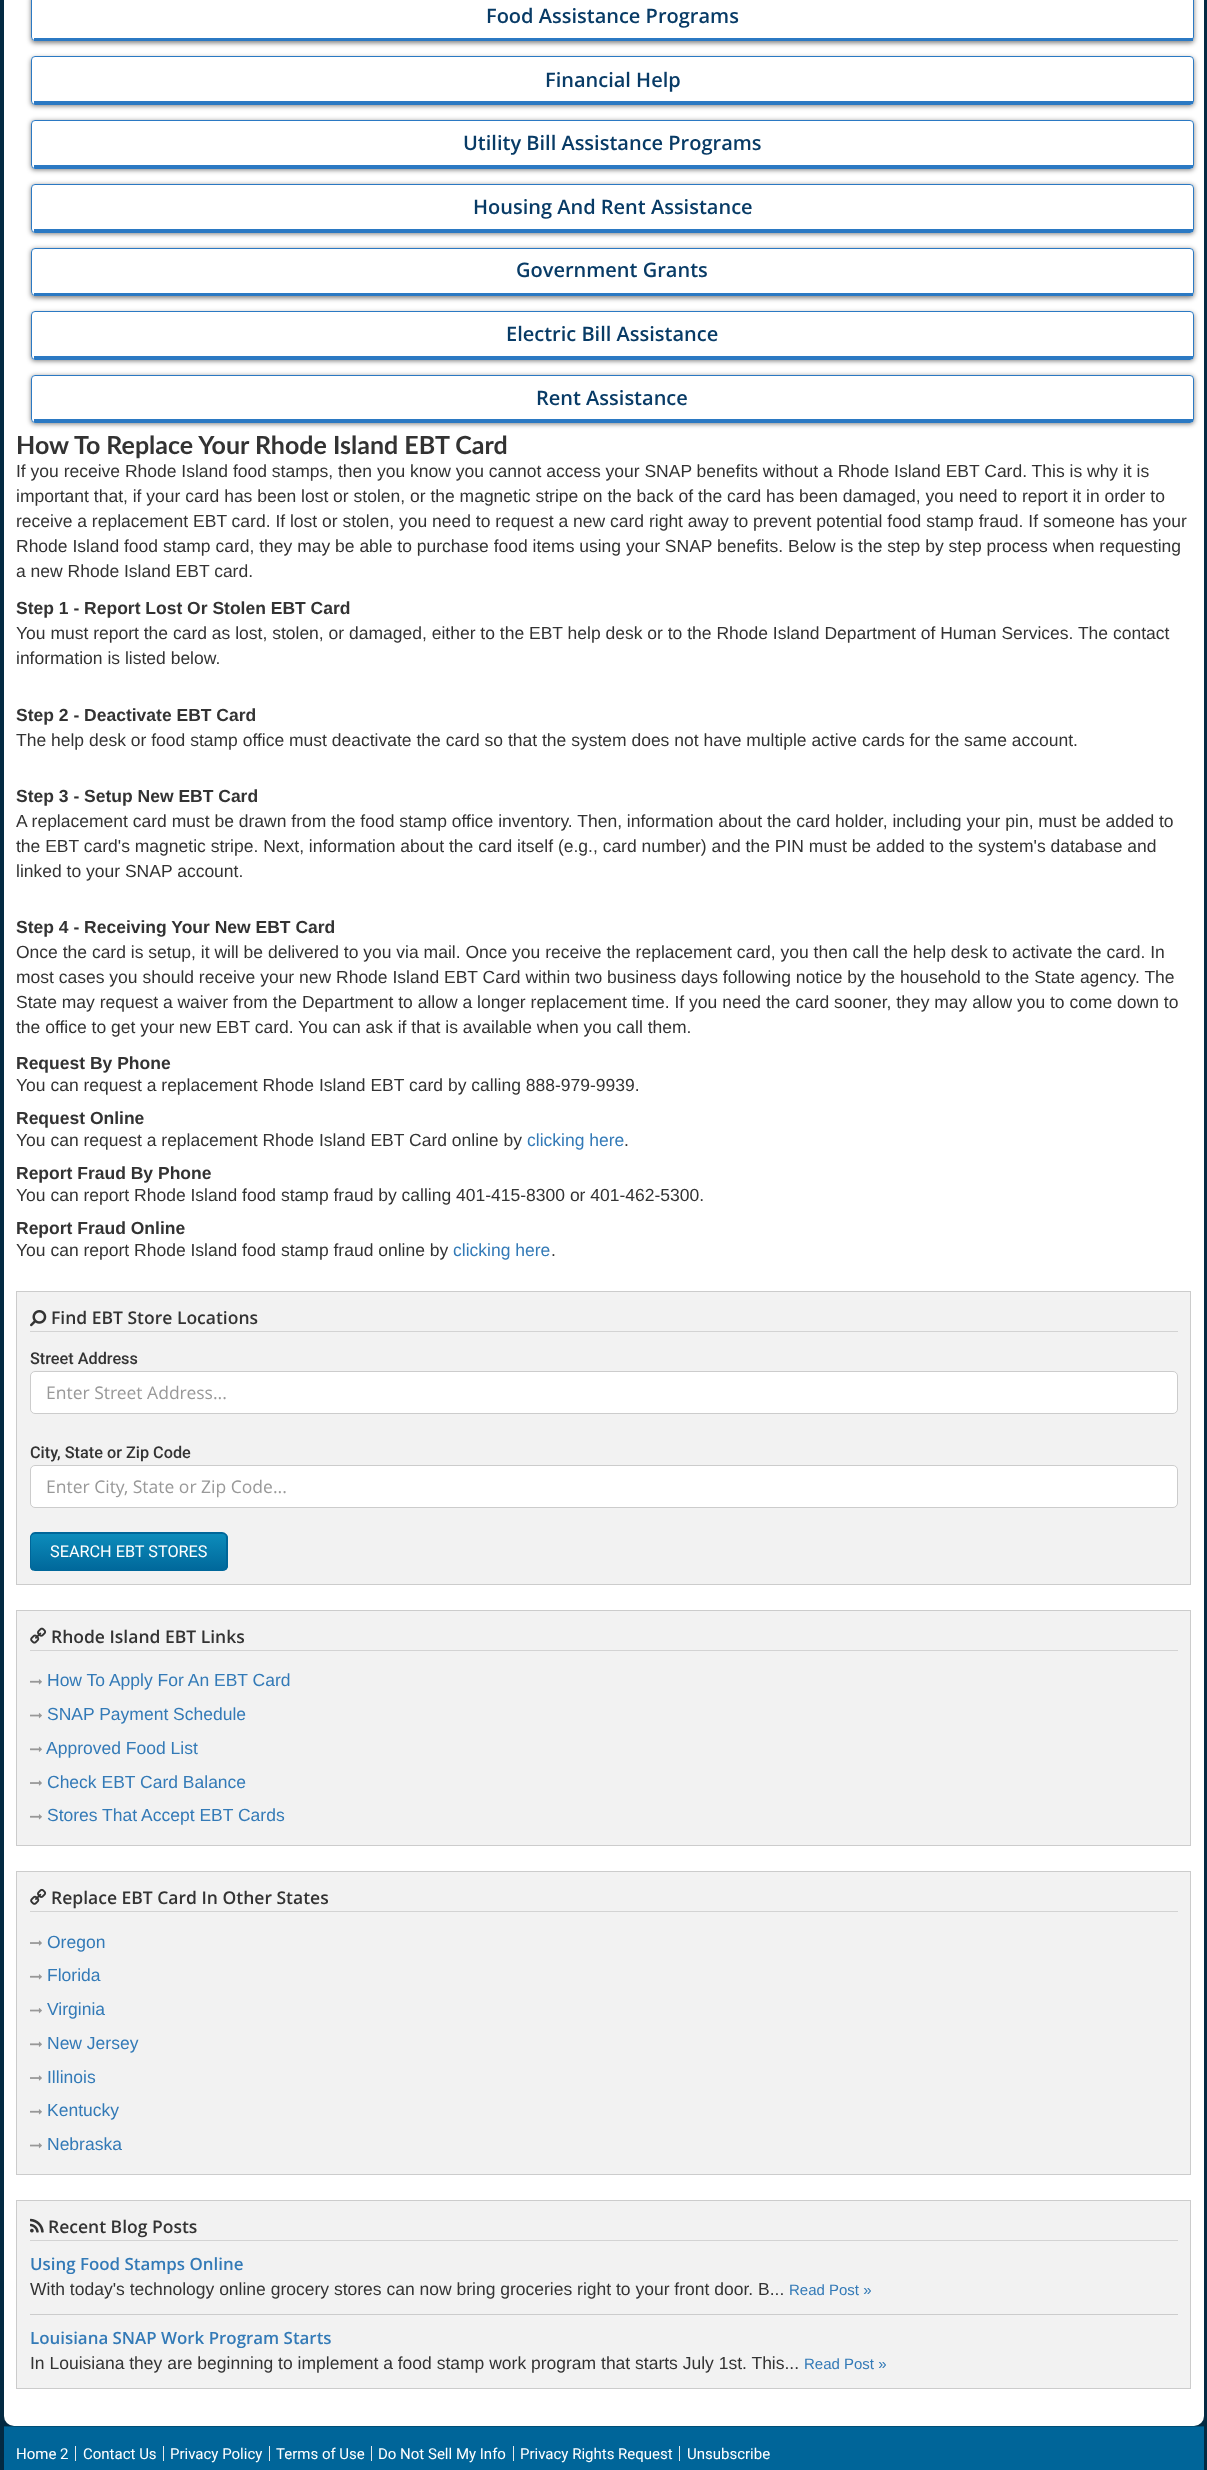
<svg xmlns="http://www.w3.org/2000/svg" width="1207" height="2470">
<defs>
<clipPath id="clip1"><path d="M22 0h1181v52h-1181zm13-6h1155c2 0 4 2 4 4v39c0 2-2 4-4 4h-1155c-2 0-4-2-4-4v-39c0-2 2-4 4-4z" clip-rule="evenodd"/></clipPath>
<clipPath id="clip2"><path d="M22 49h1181v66h-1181zm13 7h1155c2 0 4 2 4 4v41c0 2-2 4-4 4h-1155c-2 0-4-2-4-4v-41c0-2 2-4 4-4z" clip-rule="evenodd"/></clipPath>
<clipPath id="clip3"><path d="M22 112h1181v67h-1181zm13 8h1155c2 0 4 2 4 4v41c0 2-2 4-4 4h-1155c-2 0-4-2-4-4v-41c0-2 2-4 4-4z" clip-rule="evenodd"/></clipPath>
<clipPath id="clip4"><path d="M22 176h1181v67h-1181zm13 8h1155c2 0 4 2 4 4v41c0 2-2 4-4 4h-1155c-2 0-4-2-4-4v-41c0-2 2-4 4-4z" clip-rule="evenodd"/></clipPath>
<clipPath id="clip5"><path d="M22 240h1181v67h-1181zm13 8h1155c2 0 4 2 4 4v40c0 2-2 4-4 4h-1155c-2 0-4-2-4-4v-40c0-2 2-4 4-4z" clip-rule="evenodd"/></clipPath>
<clipPath id="clip6"><path d="M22 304h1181v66h-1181zm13 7h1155c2 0 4 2 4 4v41c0 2-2 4-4 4h-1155c-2 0-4-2-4-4v-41c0-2 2-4 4-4z" clip-rule="evenodd"/></clipPath>
<clipPath id="clip7"><path d="M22 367h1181v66h-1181zm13 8h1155c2 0 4 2 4 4v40c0 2-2 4-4 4h-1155c-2 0-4-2-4-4v-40c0-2 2-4 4-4z" clip-rule="evenodd"/></clipPath>
<clipPath id="clip8"><rect x="30" y="1533" width="198" height="38" rx="5"/></clipPath>
<linearGradient id="g1" gradientUnits="userSpaceOnUse" x1="129" y1="1534" x2="129" y2="1571"><stop offset="0" stop-color="#0c8cbb"/><stop offset="1" stop-color="#00679a"/></linearGradient>
</defs>
<rect width="100%" height="100%" fill="#032a42"/>
<rect x="4" y="-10" width="1200" height="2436" rx="10" fill="#fff"/>
<g clip-path="url(#clip1)">
<rect x="31" y="-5" width="1163" height="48" rx="4" fill="#00000080" filter="blur(2.5px)"/>
</g>
<rect x="31.5" y="-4.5" width="1162" height="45" rx="3.5" fill="none" stroke="#2b79c3"/>
<rect x="34" y="38" width="1159" height="3" fill="#2b79c3"/>
<text x="486" y="23" style="font-family:Open Sans;font-size:20px;font-weight:600;fill:#083b66">Food Assistance Programs</text>
<g clip-path="url(#clip2)">
<rect x="31" y="58" width="1163" height="48" rx="4" fill="#00000080" filter="blur(2.5px)"/>
</g>
<rect x="31.5" y="56.5" width="1162" height="48" rx="3.5" fill="none" stroke="#2b79c3"/>
<rect x="34" y="101" width="1159" height="3" fill="#2b79c3"/>
<text x="545" y="87" style="font-family:Open Sans;font-size:20px;font-weight:600;fill:#083b66">Financial Help</text>
<g clip-path="url(#clip3)">
<rect x="31" y="121" width="1163" height="49" rx="4" fill="#00000080" filter="blur(2.5px)"/>
</g>
<rect x="31.5" y="120.5" width="1162" height="48" rx="3.5" fill="none" stroke="#2b79c3"/>
<rect x="34" y="165" width="1159" height="3" fill="#2b79c3"/>
<text x="463" y="150" style="font-family:Open Sans;font-size:20px;font-weight:600;fill:#083b66">Utility Bill Assistance Programs</text>
<g clip-path="url(#clip4)">
<rect x="31" y="185" width="1163" height="49" rx="4" fill="#00000080" filter="blur(2.5px)"/>
</g>
<rect x="31.5" y="184.5" width="1162" height="48" rx="3.5" fill="none" stroke="#2b79c3"/>
<rect x="34" y="229" width="1159" height="3" fill="#2b79c3"/>
<text x="473" y="214" style="font-family:Open Sans;font-size:20px;font-weight:600;fill:#083b66">Housing And Rent Assistance</text>
<g clip-path="url(#clip5)">
<rect x="31" y="249" width="1163" height="49" rx="4" fill="#00000080" filter="blur(2.5px)"/>
</g>
<rect x="31.5" y="248.5" width="1162" height="47" rx="3.5" fill="none" stroke="#2b79c3"/>
<rect x="34" y="293" width="1159" height="3" fill="#2b79c3"/>
<text x="516" y="277" style="font-family:Open Sans;font-size:20px;font-weight:600;fill:#083b66">Government Grants</text>
<g clip-path="url(#clip6)">
<rect x="31" y="313" width="1163" height="48" rx="4" fill="#00000080" filter="blur(2.5px)"/>
</g>
<rect x="31.5" y="311.5" width="1162" height="48" rx="3.5" fill="none" stroke="#2b79c3"/>
<rect x="34" y="356" width="1159" height="3" fill="#2b79c3"/>
<text x="506" y="341" style="font-family:Open Sans;font-size:20px;font-weight:600;fill:#083b66">Electric Bill Assistance</text>
<g clip-path="url(#clip7)">
<rect x="31" y="376" width="1163" height="48" rx="4" fill="#00000080" filter="blur(2.5px)"/>
</g>
<rect x="31.5" y="375.5" width="1162" height="47" rx="3.5" fill="none" stroke="#2b79c3"/>
<rect x="34" y="419" width="1159" height="3" fill="#2b79c3"/>
<text x="536" y="405" style="font-family:Open Sans;font-size:20px;font-weight:600;fill:#083b66">Rent Assistance</text>
<text x="16" y="454" style="font-family:Lato;font-size:25px;font-weight:bold;fill:#333">How To Replace Your Rhode Island EBT Card</text>
<text x="16" y="477" style="font-family:Liberation Sans;font-size:17.5px;fill:#333">If you receive Rhode Island food stamps, then you know you cannot access your SNAP benefits without a Rhode Island EBT Card. This is why it is</text>
<text x="16" y="502" style="font-family:Liberation Sans;font-size:17.5px;fill:#333">important that, if your card has been lost or stolen, or the magnetic stripe on the back of the card has been damaged, you need to report it in order to</text>
<text x="16" y="527" style="font-family:Liberation Sans;font-size:17.5px;fill:#333">receive a replacement EBT card. If lost or stolen, you need to request a new card right away to prevent potential food stamp fraud. If someone has your</text>
<text x="16" y="552" style="font-family:Liberation Sans;font-size:17.5px;fill:#333">Rhode Island food stamp card, they may be able to purchase food items using your SNAP benefits. Below is the step by step process when requesting</text>
<text x="16" y="577" style="font-family:Liberation Sans;font-size:17.5px;fill:#333">a new Rhode Island EBT card.</text>
<text x="16" y="614" style="font-family:Liberation Sans;font-size:17.5px;font-weight:bold;fill:#333">Step 1 - Report Lost Or Stolen EBT Card</text>
<text x="16" y="639" style="font-family:Liberation Sans;font-size:17.5px;fill:#333">You must report the card as lost, stolen, or damaged, either to the EBT help desk or to the Rhode Island Department of Human Services. The contact</text>
<text x="16" y="664" style="font-family:Liberation Sans;font-size:17.5px;fill:#333">information is listed below.</text>
<text x="16" y="721" style="font-family:Liberation Sans;font-size:17.5px;font-weight:bold;fill:#333">Step 2 - Deactivate EBT Card</text>
<text x="16" y="746" style="font-family:Liberation Sans;font-size:17.5px;fill:#333">The help desk or food stamp office must deactivate the card so that the system does not have multiple active cards for the same account.</text>
<text x="16" y="802" style="font-family:Liberation Sans;font-size:17.5px;font-weight:bold;fill:#333">Step 3 - Setup New EBT Card</text>
<text x="16" y="827" style="font-family:Liberation Sans;font-size:17.5px;fill:#333">A replacement card must be drawn from the food stamp office inventory. Then, information about the card holder, including your pin, must be added to</text>
<text x="16" y="852" style="font-family:Liberation Sans;font-size:17.5px;fill:#333">the EBT card's magnetic stripe. Next, information about the card itself (e.g., card number) and the PIN must be added to the system's database and</text>
<text x="16" y="877" style="font-family:Liberation Sans;font-size:17.5px;fill:#333">linked to your SNAP account.</text>
<text x="16" y="933" style="font-family:Liberation Sans;font-size:17.5px;font-weight:bold;fill:#333">Step 4 - Receiving Your New EBT Card</text>
<text x="16" y="958" style="font-family:Liberation Sans;font-size:17.5px;fill:#333">Once the card is setup, it will be delivered to you via mail. Once you receive the replacement card, you then call the help desk to activate the card. In</text>
<text x="16" y="983" style="font-family:Liberation Sans;font-size:17.5px;fill:#333">most cases you should receive your new Rhode Island EBT Card within two business days following notice by the household to the State agency. The</text>
<text x="16" y="1008" style="font-family:Liberation Sans;font-size:17.5px;fill:#333">State may request a waiver from the Department to allow a longer replacement time. If you need the card sooner, they may allow you to come down to</text>
<text x="16" y="1033" style="font-family:Liberation Sans;font-size:17.5px;fill:#333">the office to get your new EBT card. You can ask if that is available when you call them.</text>
<text x="16" y="1069" style="font-family:Liberation Sans;font-size:17.5px;font-weight:bold;fill:#333">Request By Phone</text>
<text x="16" y="1091" style="font-family:Liberation Sans;font-size:17.5px;fill:#333">You can request a replacement Rhode Island EBT card by calling 888-979-9939.</text>
<text x="16" y="1124" style="font-family:Liberation Sans;font-size:17.5px;font-weight:bold;fill:#333">Request Online</text>
<text x="16" y="1146" style="font-family:Liberation Sans;font-size:17.5px;fill:#333">You can request a replacement Rhode Island EBT Card online by</text>
<text x="527" y="1146" style="font-family:Liberation Sans;font-size:17.5px;fill:#337ab7">clicking here</text>
<text x="624" y="1146" style="font-family:Liberation Sans;font-size:17.5px;fill:#333">.</text>
<text x="16" y="1179" style="font-family:Liberation Sans;font-size:17.5px;font-weight:bold;fill:#333">Report Fraud By Phone</text>
<text x="16" y="1201" style="font-family:Liberation Sans;font-size:17.5px;fill:#333">You can report Rhode Island food stamp fraud by calling 401-415-8300 or 401-462-5300.</text>
<text x="16" y="1234" style="font-family:Liberation Sans;font-size:17.5px;font-weight:bold;fill:#333">Report Fraud Online</text>
<text x="16" y="1256" style="font-family:Liberation Sans;font-size:17.5px;fill:#333">You can report Rhode Island food stamp fraud online by</text>
<text x="453" y="1256" style="font-family:Liberation Sans;font-size:17.5px;fill:#337ab7">clicking here</text>
<text x="551" y="1256" style="font-family:Liberation Sans;font-size:17.5px;fill:#333">.</text>
<rect x="16.5" y="1291.5" width="1174" height="293" fill="#f2f2f2" stroke="#ccc"/>
<rect x="30" y="1331" width="1148" height="1" fill="#d3d3d3"/>
<image x="30" y="1310" width="17" height="17" href="media/1.png"/>
<text x="51" y="1324" style="font-family:Open Sans;font-size:17.5px;font-weight:600;fill:#333">Find EBT Store Locations</text>
<text x="30" y="1364" style="font-family:Roboto;font-size:16.25px;font-weight:500;fill:#333">Street Address</text>
<rect x="30.5" y="1371.5" width="1147" height="42" rx="4.5" fill="#fff" stroke="#ccc"/>
<text x="46" y="1399" style="font-family:Open Sans;font-size:17.5px;fill:#999">Enter Street Address...</text>
<text x="30" y="1458" style="font-family:Roboto;font-size:16.25px;font-weight:500;fill:#333">City, State or Zip Code</text>
<rect x="30.5" y="1465.5" width="1147" height="42" rx="4.5" fill="#fff" stroke="#ccc"/>
<text x="46" y="1493" style="font-family:Open Sans;font-size:17.5px;fill:#999">Enter City, State or Zip Code...</text>
<g clip-path="url(#clip8)">
<path d="M30 1534h198v32c0 3-2 5-5 5h-188c-3 0-5-2-5-5z" fill="url(#g1)"/>
</g>
<path d="M35 1532h187c3 0 6 3 6 6v28c0 3-3 5-6 5h-187c-3 0-5-2-5-5v-28c0-3 2-6 5-6zm0 2h187c3 0 4 1 4 4v28c0 3-1 5-4 5h-187c-2 0-4-2-4-5v-28c0-3 2-4 4-4z" fill="#069" fill-rule="evenodd"/>
<text x="50" y="1557" style="font-family:Roboto;font-size:16.25px;fill:#fff">SEARCH EBT STORES</text>
<rect x="16.5" y="1610.5" width="1174" height="235" fill="#f2f2f2" stroke="#ccc"/>
<rect x="30" y="1650" width="1148" height="1" fill="#d3d3d3"/>
<image x="30" y="1627" width="17" height="17" href="media/2.png"/>
<text x="51" y="1643" style="font-family:Open Sans;font-size:17.5px;font-weight:600;fill:#333">Rhode Island EBT Links</text>
<image x="30" y="1679" width="12" height="6" href="media/3.png"/>
<text x="47" y="1686" style="font-family:Liberation Sans;font-size:17.5px;fill:#337ab7">How To Apply For An EBT Card</text>
<image x="30" y="1713" width="12" height="6" href="media/4.png"/>
<text x="47" y="1720" style="font-family:Liberation Sans;font-size:17.5px;fill:#337ab7">SNAP Payment Schedule</text>
<image x="30" y="1746" width="12" height="6" href="media/5.png"/>
<text x="46" y="1754" style="font-family:Liberation Sans;font-size:17.5px;fill:#337ab7">Approved Food List</text>
<image x="30" y="1780" width="12" height="6" href="media/6.png"/>
<text x="47" y="1788" style="font-family:Liberation Sans;font-size:17.5px;fill:#337ab7">Check EBT Card Balance</text>
<image x="30" y="1814" width="12" height="6" href="media/3.png"/>
<text x="47" y="1821" style="font-family:Liberation Sans;font-size:17.5px;fill:#337ab7">Stores That Accept EBT Cards</text>
<rect x="16.5" y="1871.5" width="1174" height="303" fill="#f2f2f2" stroke="#ccc"/>
<rect x="30" y="1911" width="1148" height="1" fill="#d3d3d3"/>
<image x="30" y="1888" width="17" height="17" href="media/7.png"/>
<text x="51" y="1904" style="font-family:Open Sans;font-size:17.5px;font-weight:600;fill:#333">Replace EBT Card In Other States</text>
<image x="30" y="1940" width="12" height="6" href="media/6.png"/>
<text x="47" y="1948" style="font-family:Liberation Sans;font-size:17.5px;fill:#337ab7">Oregon</text>
<image x="30" y="1974" width="12" height="6" href="media/3.png"/>
<text x="47" y="1981" style="font-family:Liberation Sans;font-size:17.5px;fill:#337ab7">Florida</text>
<image x="30" y="2008" width="12" height="6" href="media/4.png"/>
<text x="47" y="2015" style="font-family:Liberation Sans;font-size:17.5px;fill:#337ab7">Virginia</text>
<image x="30" y="2041" width="12" height="6" href="media/5.png"/>
<text x="47" y="2049" style="font-family:Liberation Sans;font-size:17.5px;fill:#337ab7">New Jersey</text>
<image x="30" y="2075" width="12" height="6" href="media/6.png"/>
<text x="47" y="2083" style="font-family:Liberation Sans;font-size:17.5px;fill:#337ab7">Illinois</text>
<image x="30" y="2109" width="12" height="6" href="media/3.png"/>
<text x="47" y="2116" style="font-family:Liberation Sans;font-size:17.5px;fill:#337ab7">Kentucky</text>
<image x="30" y="2143" width="12" height="6" href="media/4.png"/>
<text x="47" y="2150" style="font-family:Liberation Sans;font-size:17.5px;fill:#337ab7">Nebraska</text>
<rect x="16.5" y="2200.5" width="1174" height="188" fill="#f2f2f2" stroke="#ccc"/>
<rect x="30" y="2240" width="1148" height="1" fill="#d3d3d3"/>
<image x="30" y="2218" width="14" height="15" href="media/8.png"/>
<text x="48" y="2233" style="font-family:Open Sans;font-size:17.5px;font-weight:600;fill:#333">Recent Blog Posts</text>
<rect x="30" y="2314" width="1148" height="1" fill="#ccc"/>
<text x="30" y="2270" style="font-family:Open Sans;font-size:16.9px;font-weight:600;fill:#337ab7">Using Food Stamps Online</text>
<text x="30" y="2295" style="font-family:Liberation Sans;font-size:17.5px;fill:#333">With today's technology online grocery stores can now bring groceries right to your front door. B...</text>
<text x="789" y="2295" style="font-family:Liberation Sans;font-size:15px;fill:#337ab7">Read Post »</text>
<text x="30" y="2344" style="font-family:Open Sans;font-size:16.9px;font-weight:600;fill:#337ab7">Louisiana SNAP Work Program Starts</text>
<text x="30" y="2369" style="font-family:Liberation Sans;font-size:17.5px;fill:#333">In Louisiana they are beginning to implement a food stamp work program that starts July 1st. This...</text>
<text x="804" y="2369" style="font-family:Liberation Sans;font-size:15px;fill:#337ab7">Read Post »</text>
<rect x="4" y="2427" width="1200" height="43" fill="#006599"/>
<rect x="4" y="2426" width="1200" height="1" fill="#014e75"/>
<rect x="75" y="2446" width="1" height="15" fill="#eaeaea"/>
<text x="16" y="2459" style="font-family:Roboto;font-size:15px;fill:#fff">Home 2</text>
<rect x="163" y="2446" width="1" height="15" fill="#eaeaea"/>
<text x="83" y="2459" style="font-family:Roboto;font-size:15px;fill:#fff">Contact Us</text>
<rect x="269" y="2446" width="1" height="15" fill="#eaeaea"/>
<text x="170" y="2459" style="font-family:Roboto;font-size:15px;fill:#fff">Privacy Policy</text>
<rect x="371" y="2446" width="1" height="15" fill="#eaeaea"/>
<text x="276" y="2459" style="font-family:Roboto;font-size:15px;fill:#fff">Terms of Use</text>
<rect x="513" y="2446" width="1" height="15" fill="#eaeaea"/>
<text x="378" y="2459" style="font-family:Roboto;font-size:15px;fill:#fff">Do Not Sell My Info</text>
<rect x="679" y="2446" width="1" height="15" fill="#eaeaea"/>
<text x="520" y="2459" style="font-family:Roboto;font-size:15px;fill:#fff">Privacy Rights Request</text>
<text x="687" y="2459" style="font-family:Roboto;font-size:15px;fill:#fff">Unsubscribe</text>
</svg>
